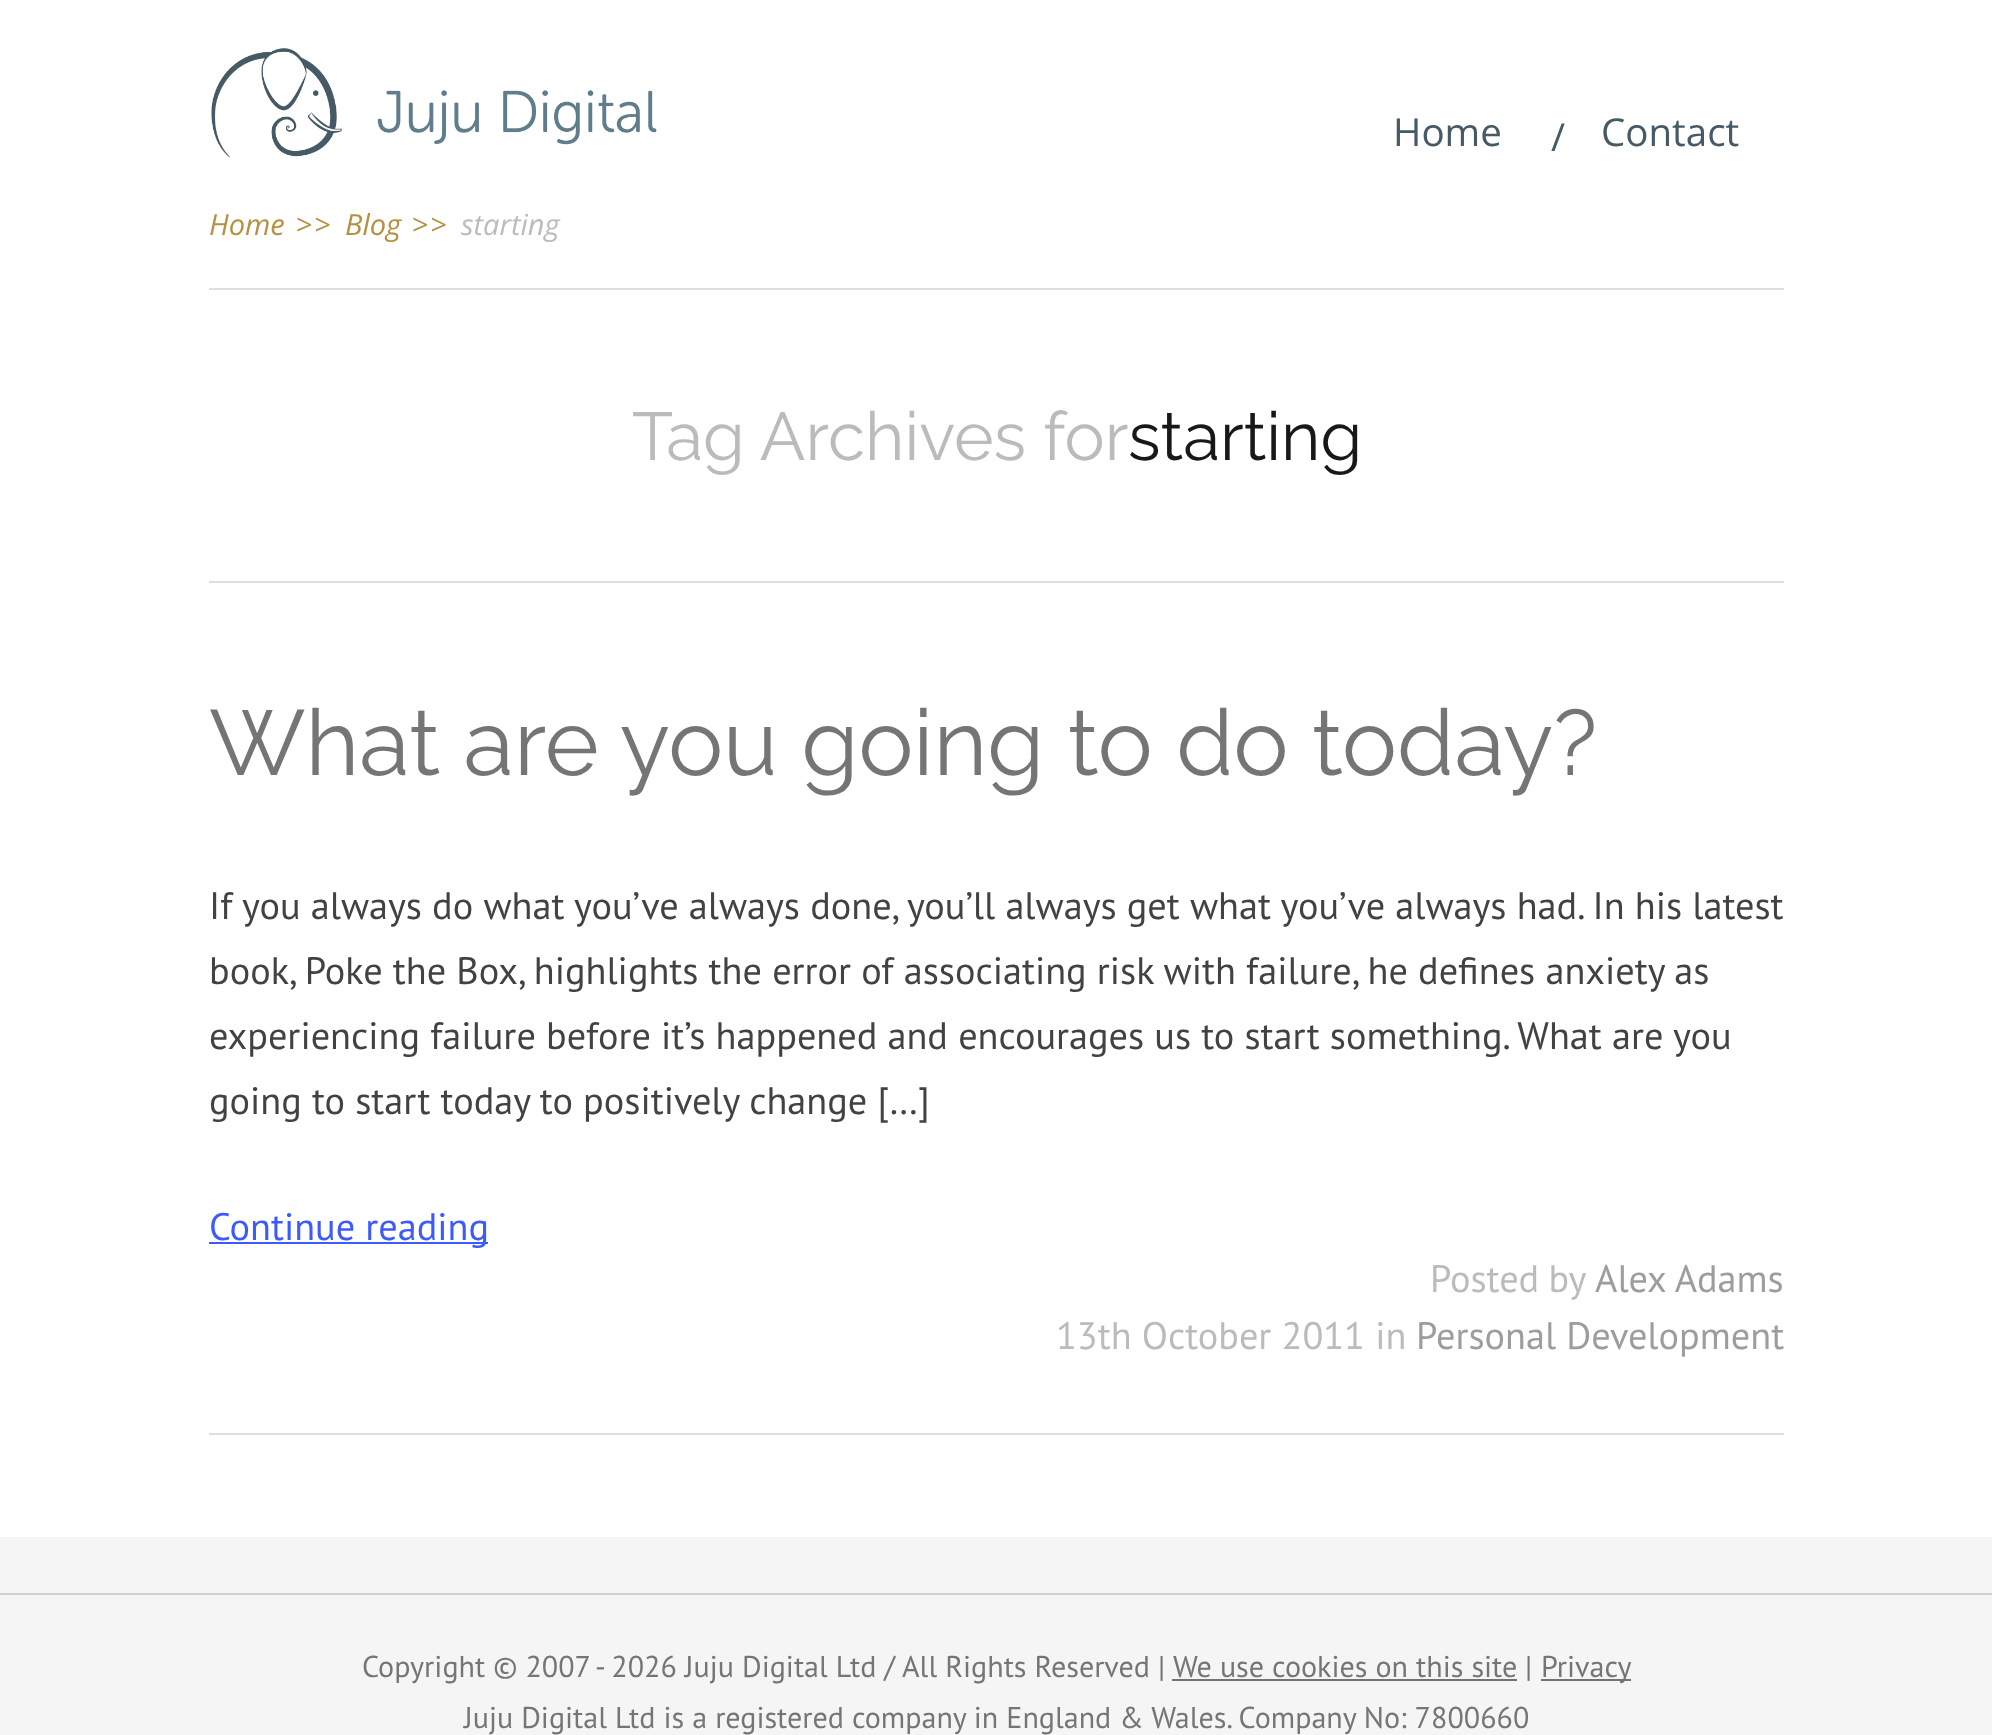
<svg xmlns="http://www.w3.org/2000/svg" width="1992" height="1735">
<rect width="100%" height="100%" fill="#fff"/>
<image x="211" y="48" width="446" height="110" href="media/1.png"/>
<text x="1393" y="146" style="font-family:Open Sans;font-size:38.5px;fill:#455a64">Home</text>
<text x="1551" y="151" style="font-family:Open Sans;font-size:38.5px;fill:#455a64">/</text>
<text x="1601" y="146" style="font-family:Open Sans;font-size:38.5px;fill:#455a64">Contact</text>
<text x="209" y="235" style="font-family:Open Sans;font-size:29px;font-style:italic;fill:#b5903f">Home</text>
<text x="296" y="235" style="font-family:Open Sans;font-size:29px;letter-spacing:2px;fill:#b5903f">&gt;&gt;</text>
<text x="345" y="235" style="font-family:Open Sans;font-size:29px;font-style:italic;fill:#b5903f">Blog</text>
<text x="412" y="235" style="font-family:Open Sans;font-size:29px;letter-spacing:2px;fill:#b5903f">&gt;&gt;</text>
<text x="461" y="235" style="font-family:Open Sans;font-size:29px;font-style:italic;fill:#bbb">starting</text>
<rect x="209" y="288" width="1575" height="2" fill="#dfdfdf"/>
<rect x="209" y="581" width="1575" height="2" fill="#dfdfdf"/>
<text x="632" y="460" style="font-family:Raleway;font-size:67.5px;fill:#bbb">Tag Archives for</text>
<text x="1128" y="460" style="font-family:Raleway;font-size:67.5px;fill:#181818">starting</text>
<rect x="209" y="1433" width="1575" height="2" fill="#dfdfdf"/>
<text x="209" y="775" style="font-family:Raleway;font-size:92.25px;fill:#757575">What are you going to do today?</text>
<text x="209" y="919" style="font-family:PT Sans;font-size:38.25px;fill:#424242">If you always do what you’ve always done, you’ll always get what you’ve always had. In his latest</text>
<text x="209" y="984" style="font-family:PT Sans;font-size:38.25px;fill:#424242">book, Poke the Box, highlights the error of associating risk with failure, he defines anxiety as</text>
<text x="209" y="1049" style="font-family:PT Sans;font-size:38.25px;fill:#424242">experiencing failure before it’s happened and encourages us to start something. What are you</text>
<text x="209" y="1114" style="font-family:PT Sans;font-size:38.25px;fill:#424242">going to start today to positively change […]</text>
<rect x="209" y="1242" width="279" height="2" fill="#3d5afe"/>
<text x="209" y="1240" style="font-family:PT Sans;font-size:38.25px;fill:#3d5afe">Continue reading</text>
<text x="1430" y="1292" word-spacing="-1" style="font-family:PT Sans;font-size:38.25px;fill:#bbb">Posted by</text>
<text x="1595" y="1292" style="font-family:PT Sans;font-size:38.25px;fill:#9d9d9d">Alex Adams</text>
<text x="1056" y="1349" style="font-family:PT Sans;font-size:38.25px;fill:#bbb">13th October 2011 in</text>
<text x="1416" y="1349" style="font-family:PT Sans;font-size:38.25px;fill:#9d9d9d">Personal Development</text>
<rect y="1537" width="1992" height="198" fill="#f5f5f5"/>
<rect y="1593" width="1992" height="2" fill="#d1d1d1"/>
<text x="362" y="1677" style="font-family:PT Sans;font-size:30.05px;fill:#757575">Copyright © 2007 - 2026 Juju Digital Ltd / All Rights Reserved |</text>
<text x="1173" y="1677" style="font-family:PT Sans;font-size:30.05px;fill:#757575">We use cookies on this site</text>
<rect x="1172" y="1679" width="345" height="2" fill="#737373"/>
<text x="1525" y="1677" style="font-family:PT Sans;font-size:30.05px;fill:#757575">|</text>
<rect x="1541" y="1679" width="90" height="2" fill="#737373"/>
<text x="1541" y="1677" style="font-family:PT Sans;font-size:30.05px;fill:#757575">Privacy</text>
<text x="464" y="1728" style="font-family:PT Sans;font-size:30.05px;fill:#757575">Juju Digital Ltd is a registered company in England &amp; Wales. Company No: 7800660</text>
</svg>
